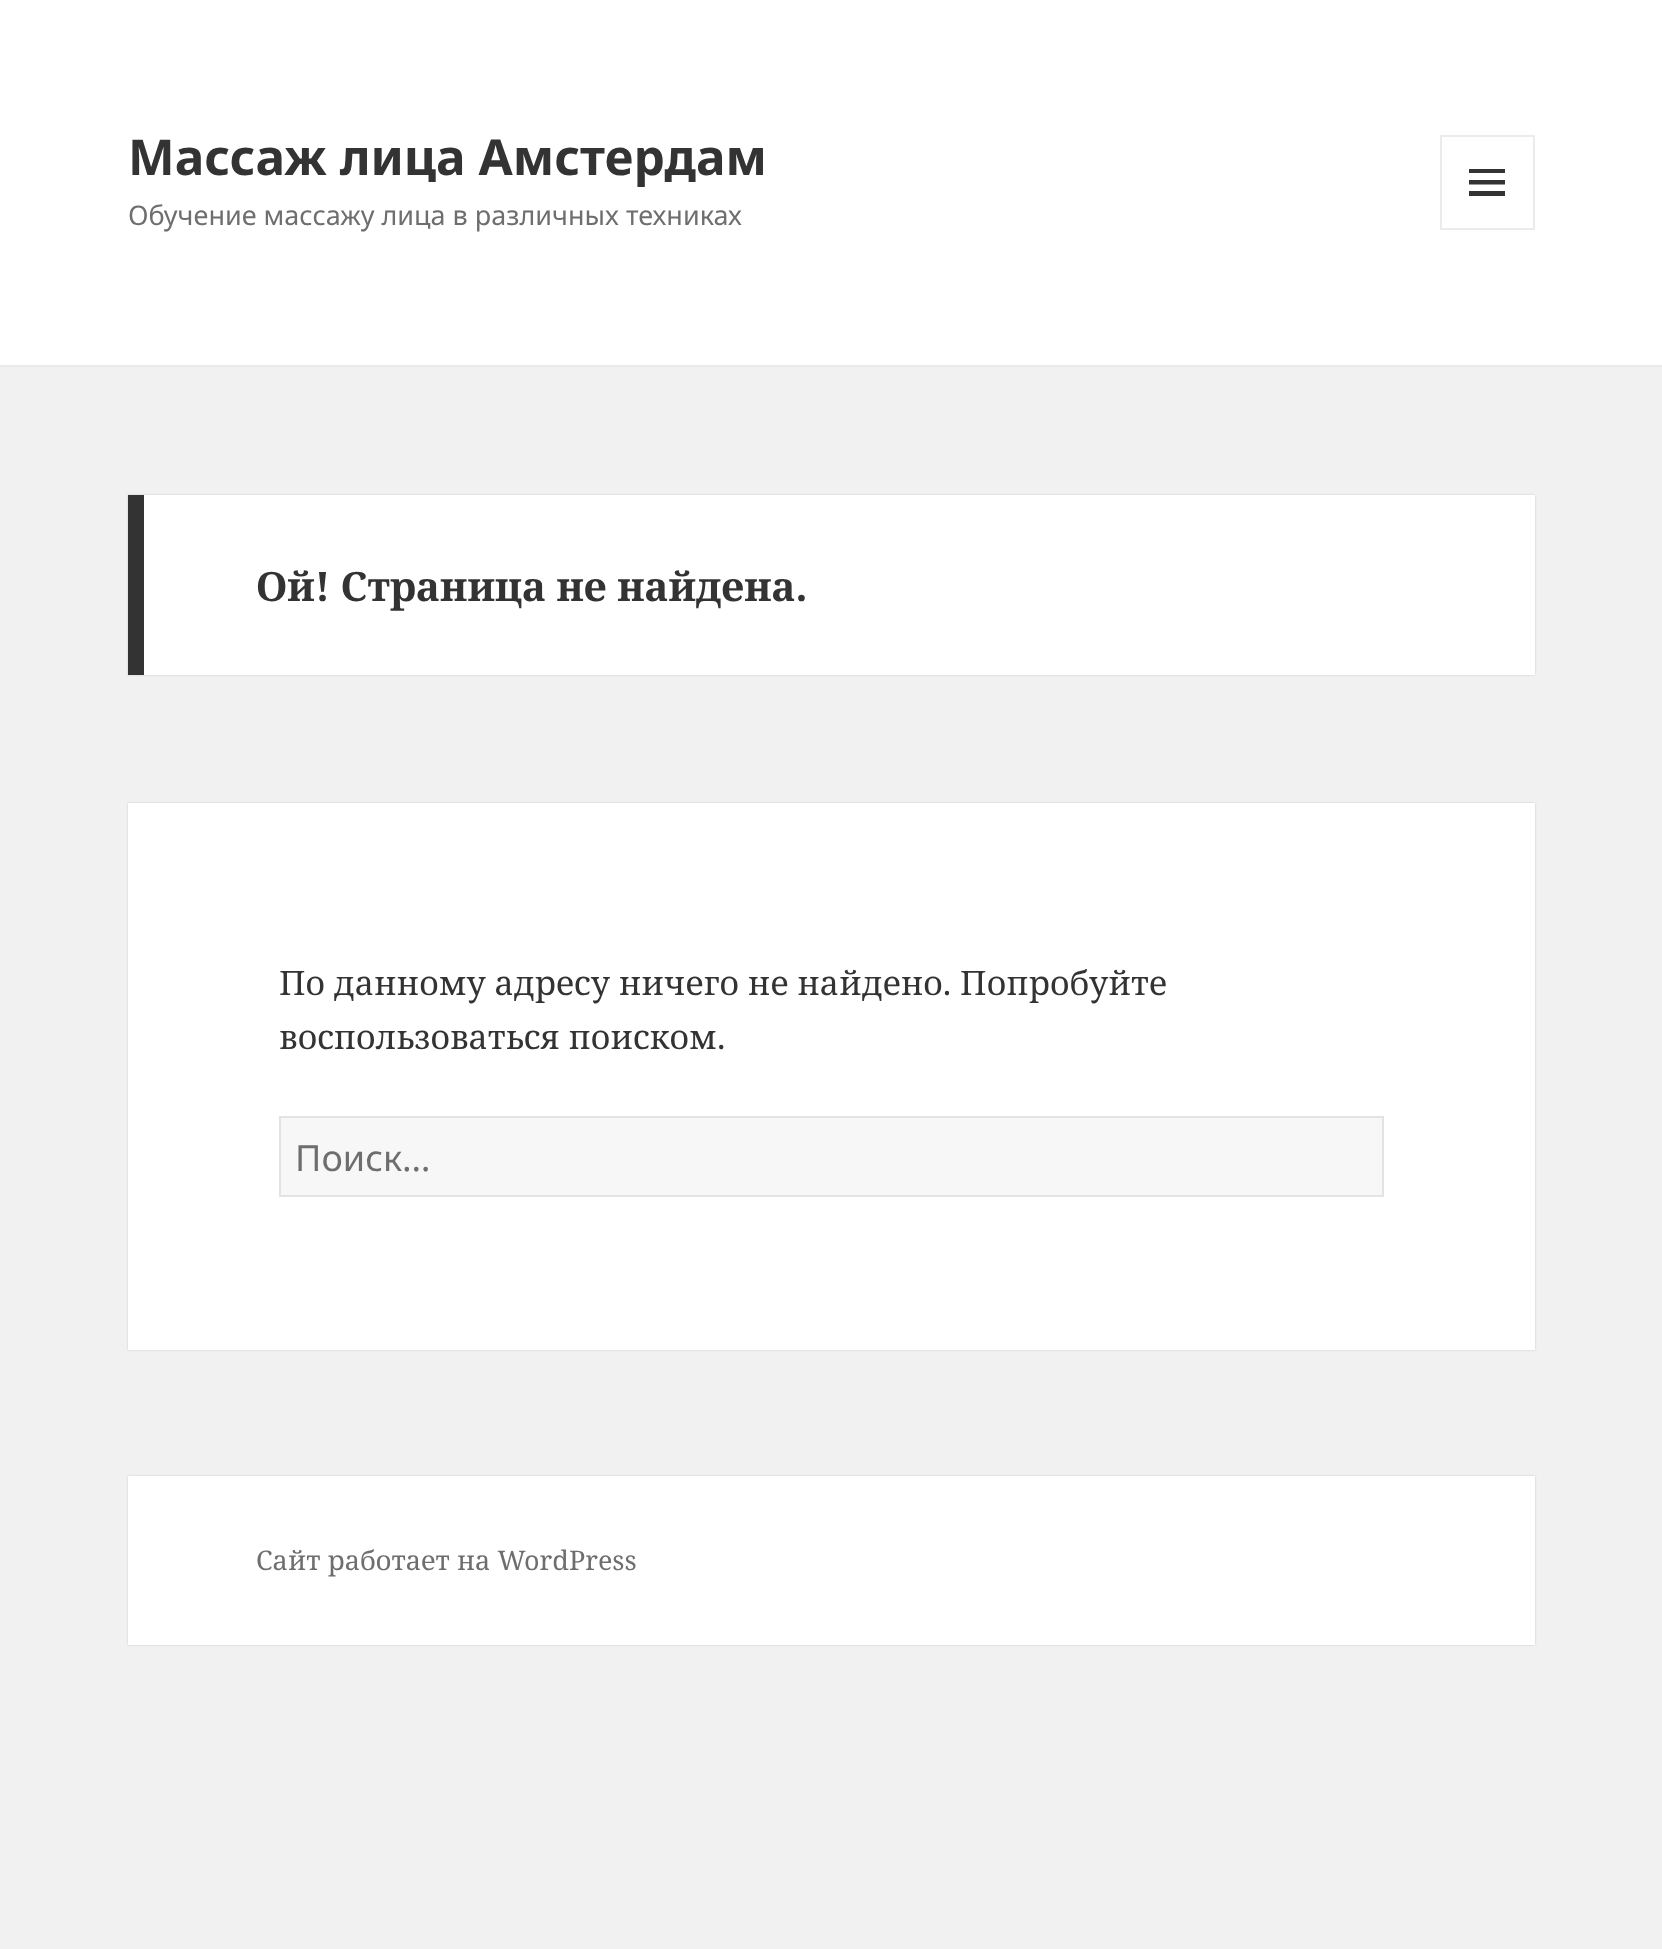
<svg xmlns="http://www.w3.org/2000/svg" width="1662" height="1949">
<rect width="100%" height="100%" fill="#f1f1f1"/>
<rect width="1662" height="365" fill="#fff"/>
<rect y="365" width="1662" height="2" fill="#ebebeb"/>
<text x="128" y="175" style="font-family:Noto Sans;font-size:49.5px;font-weight:bold;fill:#333">Массаж лица Амстердам</text>
<rect x="1441" y="136" width="93" height="93" fill="none" stroke="#ebebeb" stroke-width="2"/>
<path d="M1469 196v-5h36v5zm0-27h36v4h-36zm0 15.5v-4.5h36v4.5z" fill="#333"/>
<text x="128" y="225" style="font-family:Noto Sans;font-size:27px;fill:#6e6e6e">Обучение массажу лица в различных техниках</text>
<rect x="128" y="495" width="1407" height="180" fill="#00000026" filter="blur(1px)"/>
<rect x="144" y="495" width="1391" height="180" fill="#fff"/>
<rect x="128" y="495" width="16" height="180" fill="#333"/>
<text x="256" y="601" style="font-family:Noto Serif;font-size:40.5px;font-weight:bold;fill:#333">Ой! Страница не найдена.</text>
<rect x="128" y="803" width="1407" height="547" fill="#00000026" filter="blur(1px)"/>
<rect x="128" y="803" width="1407" height="547" fill="#fff"/>
<text x="279" y="995" style="font-family:Noto Serif;font-size:33.75px;fill:#333">По данному адресу ничего не найдено. Попробуйте</text>
<text x="279" y="1049" style="font-family:Noto Serif;font-size:33.75px;fill:#333">воспользоваться поиском.</text>
<rect x="280" y="1117" width="1103" height="79" fill="#f7f7f7" stroke="#e3e3e3" stroke-width="2"/>
<text x="295" y="1171" style="font-family:Noto Sans;font-size:36px;fill:#6e6e6e">Поиск…</text>
<rect x="128" y="1476" width="1407" height="169" fill="#00000026" filter="blur(1px)"/>
<rect x="128" y="1476" width="1407" height="169" fill="#fff"/>
<text x="256" y="1570" style="font-family:Noto Serif;font-size:27px;fill:#6e6e6e">Сайт работает на WordPress</text>
</svg>
